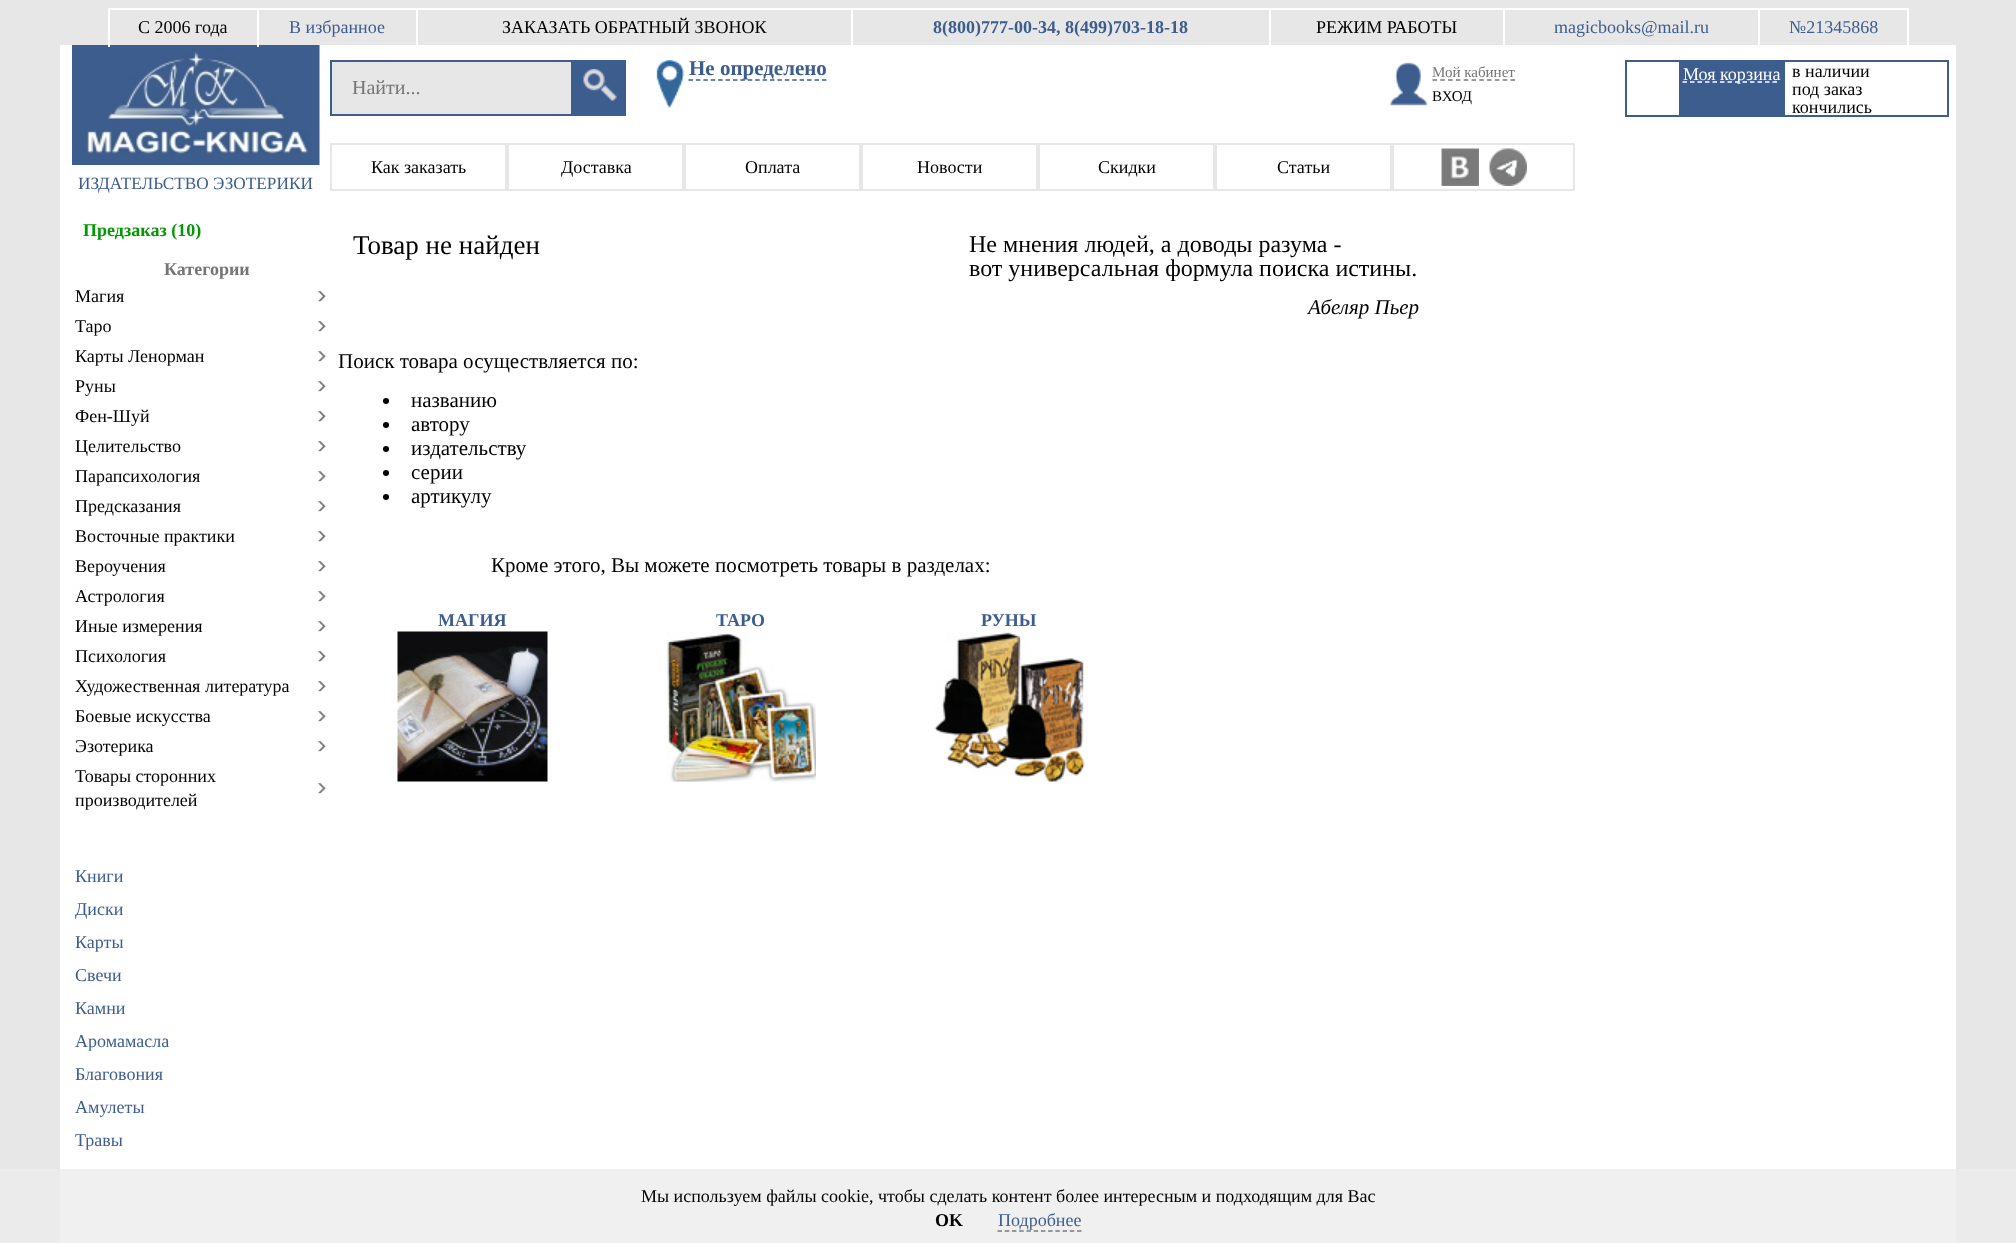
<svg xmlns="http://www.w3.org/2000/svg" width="2016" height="1243">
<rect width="100%" height="100%" fill="#e7e7e7"/>
<rect x="1758" y="8" width="150" height="2" fill="#fff"/>
<rect x="60" y="45" width="1896" height="1198" fill="#fff"/>
<rect x="1758" y="8" width="2" height="39" fill="#fff"/>
<rect x="1503" y="8" width="257" height="2" fill="#fff"/>
<rect x="1503" y="8" width="2" height="39" fill="#fff"/>
<rect x="1269" y="8" width="236" height="2" fill="#fff"/>
<rect x="1269" y="8" width="2" height="39" fill="#fff"/>
<rect x="851" y="8" width="420" height="2" fill="#fff"/>
<rect x="851" y="8" width="2" height="39" fill="#fff"/>
<rect x="416" y="8" width="436" height="2" fill="#fff"/>
<rect x="416" y="8" width="2" height="39" fill="#fff"/>
<rect x="257" y="8" width="160" height="2" fill="#fff"/>
<image x="72" y="45" width="248" height="120" href="media/6.png"/>
<rect x="257" y="8" width="2" height="39" fill="#fff"/>
<rect x="108" y="8" width="150" height="2" fill="#fff"/>
<rect x="108" y="8" width="2" height="39" fill="#fff"/>
<text x="138" y="33" style="font-family:Liberation Serif;font-size:18px;fill:#000">С 2006 года</text>
<text x="289" y="33" style="font-family:Liberation Serif;font-size:18px;fill:#3d5d8e">В избранное</text>
<text x="502" y="33" style="font-family:Liberation Serif;font-size:18px;fill:#000">ЗАКАЗАТЬ ОБРАТНЫЙ ЗВОНОК</text>
<text x="933" y="33" style="font-family:Liberation Serif;font-size:18px;font-weight:bold;fill:#3d5d8e">8(800)777-00-34, 8(499)703-18-18</text>
<text x="1316" y="33" style="font-family:Liberation Serif;font-size:18px;fill:#000">РЕЖИМ РАБОТЫ</text>
<text x="1554" y="33" style="font-family:Liberation Serif;font-size:18px;fill:#3d5d8e">magicbooks@mail.ru</text>
<rect x="1907" y="8" width="2" height="39" fill="#fff"/>
<text x="1789" y="33" style="font-family:Liberation Serif;font-size:18px;fill:#3d5d8e">№21345868</text>
<rect x="331" y="61" width="241" height="54" fill="#e7e7e7" stroke="#3d5d8e" stroke-width="2"/>
<text x="352" y="94" style="font-family:Liberation Serif;font-size:20px;fill:#757575">Найти...</text>
<rect x="573" y="60" width="53" height="56" fill="#3d5d8e"/>
<image x="583" y="69" width="34" height="32" href="media/1.png"/>
<image x="656" y="60" width="29" height="48" href="media/2.png"/>
<path d="M688.5 80h138" fill="none" stroke="#3d5d8e" stroke-width="1.5" stroke-dasharray="4.5 2.91"/>
<text x="689" y="75" style="font-family:Liberation Serif;font-size:21px;font-weight:bold;fill:#3d5d8e">Не определено</text>
<image x="1390" y="62" width="38" height="44" href="media/3.png"/>
<text x="1432" y="77" style="font-family:Liberation Serif;font-size:15px;fill:#757575">Мой кабинет</text>
<path d="M1432.5 80h82.5" fill="none" stroke="#7a7a7a" stroke-width="1.5" stroke-dasharray="4.5 3.3"/>
<text x="1432" y="101" style="font-family:Liberation Serif;font-size:15px;fill:#000">ВХОД</text>
<rect x="1626" y="61" width="322" height="55" fill="none" stroke="#3d5d8e" stroke-width="2"/>
<rect x="1679" y="62" width="106" height="53" fill="#3d5d8e"/>
<path d="M1682.5 82h97.5" fill="none" stroke="#fff" stroke-width="1.5" stroke-dasharray="4.5 3"/>
<text x="1683" y="80" style="font-family:Liberation Serif;font-size:18px;fill:#fff">Моя корзина</text>
<text x="1792" y="77" style="font-family:Liberation Serif;font-size:18px;fill:#000">в наличии</text>
<text x="1792" y="95" style="font-family:Liberation Serif;font-size:18px;fill:#000">под заказ</text>
<text x="1792" y="113" style="font-family:Liberation Serif;font-size:18px;fill:#000">кончились</text>
<rect x="331" y="144" width="175" height="46" fill="none" stroke="#e7e7e7" stroke-width="2"/>
<text x="371" y="173" style="font-family:Liberation Serif;font-size:18px;fill:#000">Как заказать</text>
<rect x="508" y="144" width="175" height="46" fill="none" stroke="#e7e7e7" stroke-width="2"/>
<text x="561" y="173" style="font-family:Liberation Serif;font-size:18px;fill:#000">Доставка</text>
<rect x="685" y="144" width="175" height="46" fill="none" stroke="#e7e7e7" stroke-width="2"/>
<text x="745" y="173" style="font-family:Liberation Serif;font-size:18px;fill:#000">Оплата</text>
<rect x="862" y="144" width="175" height="46" fill="none" stroke="#e7e7e7" stroke-width="2"/>
<text x="917" y="173" style="font-family:Liberation Serif;font-size:18px;fill:#000">Новости</text>
<rect x="1039" y="144" width="175" height="46" fill="none" stroke="#e7e7e7" stroke-width="2"/>
<text x="1098" y="173" style="font-family:Liberation Serif;font-size:18px;fill:#000">Скидки</text>
<rect x="1216" y="144" width="175" height="46" fill="none" stroke="#e7e7e7" stroke-width="2"/>
<text x="1277" y="173" style="font-family:Liberation Serif;font-size:18px;fill:#000">Статьи</text>
<rect x="1393" y="144" width="181" height="46" fill="none" stroke="#e7e7e7" stroke-width="2"/>
<image x="1441" y="148" width="38" height="38" href="media/4.png"/>
<image x="1489" y="148" width="38" height="38" href="media/5.png"/>
<text x="78" y="189" style="font-family:Liberation Serif;font-size:17.25px;fill:#3d5d8e">ИЗДАТЕЛЬСТВО ЭЗОТЕРИКИ</text>
<text x="83" y="236" style="font-family:Liberation Serif;font-size:18px;font-weight:bold;fill:#090">Предзаказ (10)</text>
<text x="164" y="275" style="font-family:Liberation Serif;font-size:18px;font-weight:bold;fill:#757575">Категории</text>
<text x="75" y="302" style="font-family:Liberation Serif;font-size:18px;fill:#000">Магия</text>
<image x="318" y="290" width="8" height="12" href="media/7.png"/>
<text x="75" y="332" style="font-family:Liberation Serif;font-size:18px;fill:#000">Таро</text>
<image x="318" y="320" width="8" height="12" href="media/7.png"/>
<text x="75" y="362" style="font-family:Liberation Serif;font-size:18px;fill:#000">Карты Ленорман</text>
<image x="318" y="350" width="8" height="12" href="media/7.png"/>
<text x="75" y="392" style="font-family:Liberation Serif;font-size:18px;fill:#000">Руны</text>
<image x="318" y="380" width="8" height="12" href="media/7.png"/>
<text x="75" y="422" style="font-family:Liberation Serif;font-size:18px;fill:#000">Фен-Шуй</text>
<image x="318" y="410" width="8" height="12" href="media/7.png"/>
<text x="75" y="452" style="font-family:Liberation Serif;font-size:18px;fill:#000">Целительство</text>
<image x="318" y="440" width="8" height="12" href="media/7.png"/>
<text x="75" y="482" style="font-family:Liberation Serif;font-size:18px;fill:#000">Парапсихология</text>
<image x="318" y="470" width="8" height="12" href="media/7.png"/>
<text x="75" y="512" style="font-family:Liberation Serif;font-size:18px;fill:#000">Предсказания</text>
<image x="318" y="500" width="8" height="12" href="media/7.png"/>
<text x="75" y="542" style="font-family:Liberation Serif;font-size:18px;fill:#000">Восточные практики</text>
<image x="318" y="530" width="8" height="12" href="media/7.png"/>
<text x="75" y="572" style="font-family:Liberation Serif;font-size:18px;fill:#000">Вероучения</text>
<image x="318" y="560" width="8" height="12" href="media/7.png"/>
<text x="75" y="602" style="font-family:Liberation Serif;font-size:18px;fill:#000">Астрология</text>
<image x="318" y="590" width="8" height="12" href="media/7.png"/>
<text x="75" y="632" style="font-family:Liberation Serif;font-size:18px;fill:#000">Иные измерения</text>
<image x="318" y="620" width="8" height="12" href="media/7.png"/>
<text x="75" y="662" style="font-family:Liberation Serif;font-size:18px;fill:#000">Психология</text>
<image x="318" y="650" width="8" height="12" href="media/7.png"/>
<text x="75" y="692" style="font-family:Liberation Serif;font-size:18px;fill:#000">Художественная литература</text>
<image x="318" y="680" width="8" height="12" href="media/7.png"/>
<text x="75" y="722" style="font-family:Liberation Serif;font-size:18px;fill:#000">Боевые искусства</text>
<image x="318" y="710" width="8" height="12" href="media/7.png"/>
<text x="75" y="752" style="font-family:Liberation Serif;font-size:18px;fill:#000">Эзотерика</text>
<image x="318" y="740" width="8" height="12" href="media/7.png"/>
<text x="75" y="782" style="font-family:Liberation Serif;font-size:18px;fill:#000">Товары сторонних</text>
<text x="75" y="806" style="font-family:Liberation Serif;font-size:18px;fill:#000">производителей</text>
<image x="318" y="782" width="8" height="12" href="media/7.png"/>
<text x="75" y="882" style="font-family:Liberation Serif;font-size:18px;fill:#3d5d8e">Книги</text>
<text x="75" y="915" style="font-family:Liberation Serif;font-size:18px;fill:#3d5d8e">Диски</text>
<text x="75" y="948" style="font-family:Liberation Serif;font-size:18px;fill:#3d5d8e">Карты</text>
<text x="75" y="981" style="font-family:Liberation Serif;font-size:18px;fill:#3d5d8e">Свечи</text>
<text x="75" y="1014" style="font-family:Liberation Serif;font-size:18px;fill:#3d5d8e">Камни</text>
<text x="75" y="1047" style="font-family:Liberation Serif;font-size:18px;fill:#3d5d8e">Аромамасла</text>
<text x="75" y="1080" style="font-family:Liberation Serif;font-size:18px;fill:#3d5d8e">Благовония</text>
<text x="75" y="1113" style="font-family:Liberation Serif;font-size:18px;fill:#3d5d8e">Амулеты</text>
<text x="75" y="1146" style="font-family:Liberation Serif;font-size:18px;fill:#3d5d8e">Травы</text>
<text x="353" y="254" style="font-family:Liberation Serif;font-size:27px;fill:#000">Товар не найден</text>
<text x="969" y="252" style="font-family:Liberation Serif;font-size:24px;fill:#000">Не мнения людей, а доводы разума -</text>
<text x="969" y="276" style="font-family:Liberation Serif;font-size:24px;fill:#000">вот универсальная формула поиска истины.</text>
<text x="1308" y="314" style="font-family:Liberation Serif;font-size:21px;font-style:italic;fill:#000">Абеляр Пьер</text>
<text x="338" y="368" style="font-family:Liberation Serif;font-size:21px;fill:#000">Поиск товара осуществляется по:</text>
<circle cx="386" cy="401" r="3" fill="#000"/>
<text x="411" y="407" style="font-family:Liberation Serif;font-size:21px;fill:#000">названию</text>
<circle cx="386" cy="425" r="3" fill="#000"/>
<text x="411" y="431" style="font-family:Liberation Serif;font-size:21px;fill:#000">автору</text>
<circle cx="386" cy="449" r="3" fill="#000"/>
<text x="411" y="455" style="font-family:Liberation Serif;font-size:21px;fill:#000">издательству</text>
<circle cx="386" cy="473" r="3" fill="#000"/>
<text x="411" y="479" style="font-family:Liberation Serif;font-size:21px;fill:#000">серии</text>
<circle cx="386" cy="497" r="3" fill="#000"/>
<text x="411" y="503" style="font-family:Liberation Serif;font-size:21px;fill:#000">артикулу</text>
<text x="491" y="572" style="font-family:Liberation Serif;font-size:21px;fill:#000">Кроме этого, Вы можете посмотреть товары в разделах:</text>
<text x="438" y="626" style="font-family:Liberation Serif;font-size:18px;font-weight:bold;fill:#3d5d8e">МАГИЯ</text>
<image x="397" y="631" width="151" height="151" href="media/8.png"/>
<text x="716" y="626" style="font-family:Liberation Serif;font-size:18px;font-weight:bold;fill:#3d5d8e">ТАРО</text>
<image x="666" y="632" width="150" height="150" href="media/9.png"/>
<text x="981" y="626" style="font-family:Liberation Serif;font-size:18px;font-weight:bold;fill:#3d5d8e">РУНЫ</text>
<image x="934" y="632" width="151" height="150" href="media/10.png"/>
<rect y="1169" width="2016" height="74" fill="#ecececcc"/>
<text x="641" y="1202" style="font-family:Liberation Serif;font-size:18px;fill:#000">Мы используем файлы cookie, чтобы сделать контент более интересным и подходящим для Вас</text>
<text x="935" y="1226" style="font-family:Liberation Serif;font-size:18px;font-weight:bold;fill:#000">OK</text>
<text x="998" y="1226" style="font-family:Liberation Serif;font-size:18px;fill:#3d5d8e">Подробнее</text>
<path d="M997.5 1231h84" fill="none" stroke="#7a7a7a" stroke-width="1.5" stroke-dasharray="4.5 2.73"/>
</svg>
